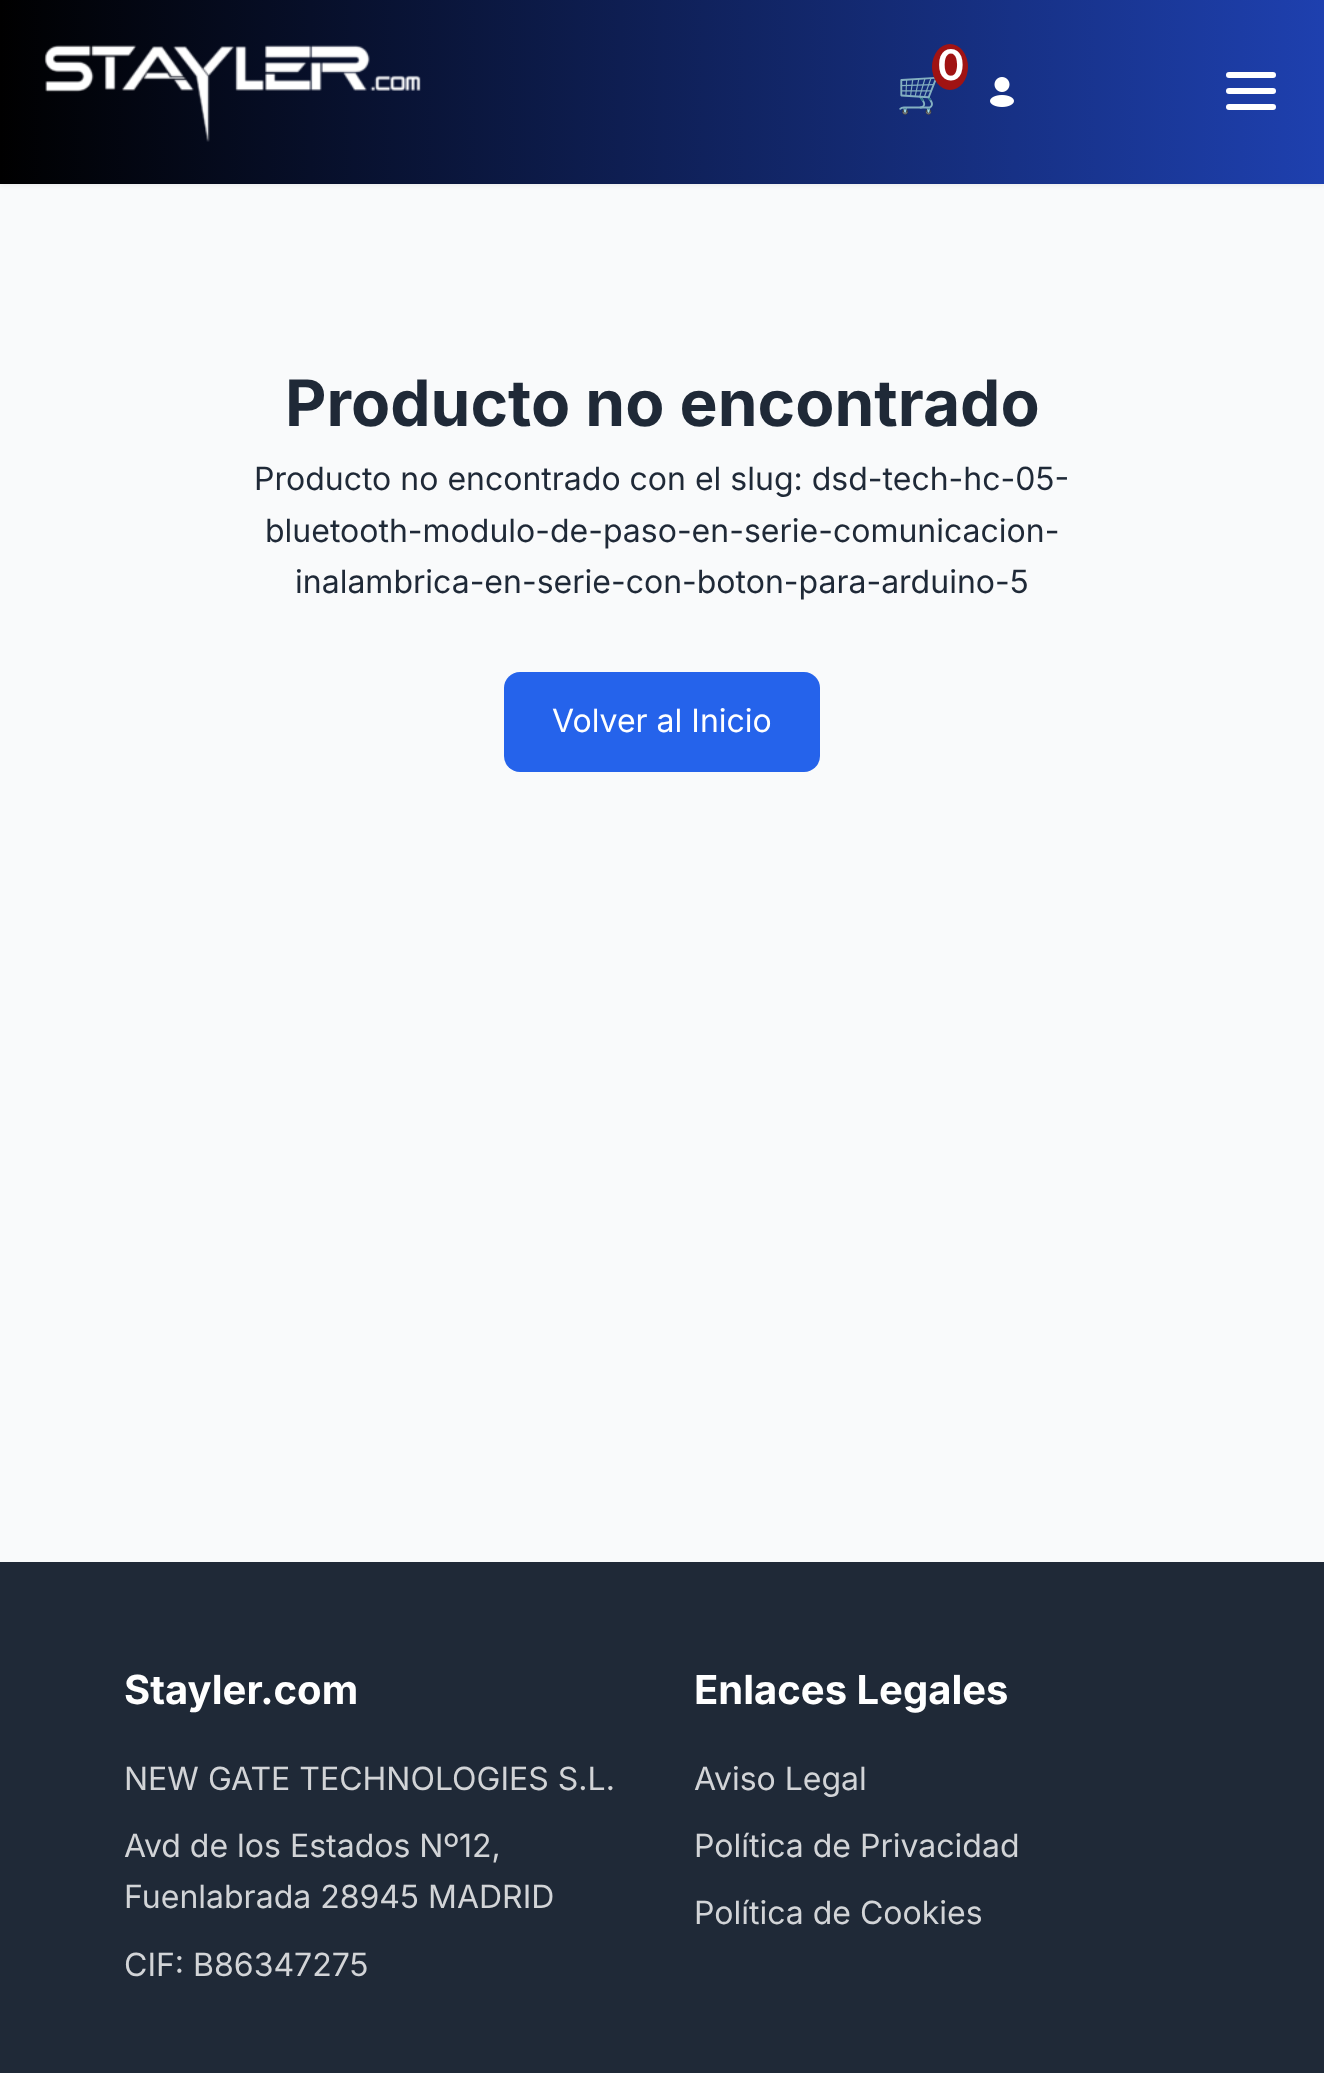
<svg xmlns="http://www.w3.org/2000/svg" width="1324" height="2073">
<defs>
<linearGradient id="g1" gradientUnits="userSpaceOnUse" x1="0" y1="1037" x2="1324" y2="1037"><stop offset="0" stop-color="#000"/><stop offset="1" stop-color="#1e40af"/></linearGradient>
</defs>
<rect width="100%" height="100%" fill="#f9fafb"/>
<rect y="2" width="1324" height="184" fill="#0000000d" filter="blur(2px)"/>
<rect width="1324" height="184" fill="url(#g1)"/>
<image x="44" y="45" width="377" height="97" href="media/1.png"/>
<text x="896" y="106" style="font-family:Noto Color Emoji;font-size:42px;fill:#fff">🛒</text>
<ellipse cx="950" cy="67" rx="18" ry="23" fill="#a01313"/>
<text x="937" y="80" style="font-family:Inter;font-size:42px;font-weight:600;fill:#fff">0</text>
<image x="990" y="77" width="24" height="30" href="media/2.png"/>
<rect x="1226" y="72" width="50" height="6" rx="3" fill="#fff"/>
<rect x="1226" y="88" width="50" height="6" rx="3" fill="#fff"/>
<rect x="1226" y="104" width="50" height="6" rx="3" fill="#fff"/>
<text x="285" y="426" style="font-family:Inter;font-size:64px;font-weight:bold;fill:#1f2937">Producto no encontrado</text>
<text x="254" y="490" style="font-family:Inter;font-size:32px;fill:#1f2937">Producto no encontrado con el slug: dsd-tech-hc-05-</text>
<text x="265" y="542" style="font-family:Inter;font-size:32px;fill:#1f2937">bluetooth-modulo-de-paso-en-serie-comunicacion-</text>
<text x="295" y="593" style="font-family:Inter;font-size:32px;fill:#1f2937">inalambrica-en-serie-con-boton-para-arduino-5</text>
<rect x="504" y="672" width="316" height="100" rx="16" fill="#2563eb"/>
<text x="552" y="732" style="font-family:Inter;font-size:32px;fill:#fff">Volver al Inicio</text>
<rect y="1562" width="1324" height="511" fill="#1f2937"/>
<text x="124" y="1704" style="font-family:Inter;font-size:40px;font-weight:bold;fill:#fff">Stayler.com</text>
<text x="124" y="1790" style="font-family:Inter;font-size:32px;fill:#d2d4d7">NEW GATE TECHNOLOGIES S.L.</text>
<text x="124" y="1857" style="font-family:Inter;font-size:32px;fill:#d2d4d7">Avd de los Estados Nº12,</text>
<text x="124" y="1908" style="font-family:Inter;font-size:32px;fill:#d2d4d7">Fuenlabrada 28945 MADRID</text>
<text x="124" y="1976" style="font-family:Inter;font-size:32px;fill:#d2d4d7">CIF: B86347275</text>
<text x="694" y="1704" style="font-family:Inter;font-size:40px;font-weight:bold;fill:#fff">Enlaces Legales</text>
<text x="694" y="1790" style="font-family:Inter;font-size:32px;fill:#d2d4d7">Aviso Legal</text>
<text x="694" y="1857" style="font-family:Inter;font-size:32px;fill:#d2d4d7">Política de Privacidad</text>
<text x="694" y="1924" style="font-family:Inter;font-size:32px;fill:#d2d4d7">Política de Cookies</text>
</svg>
